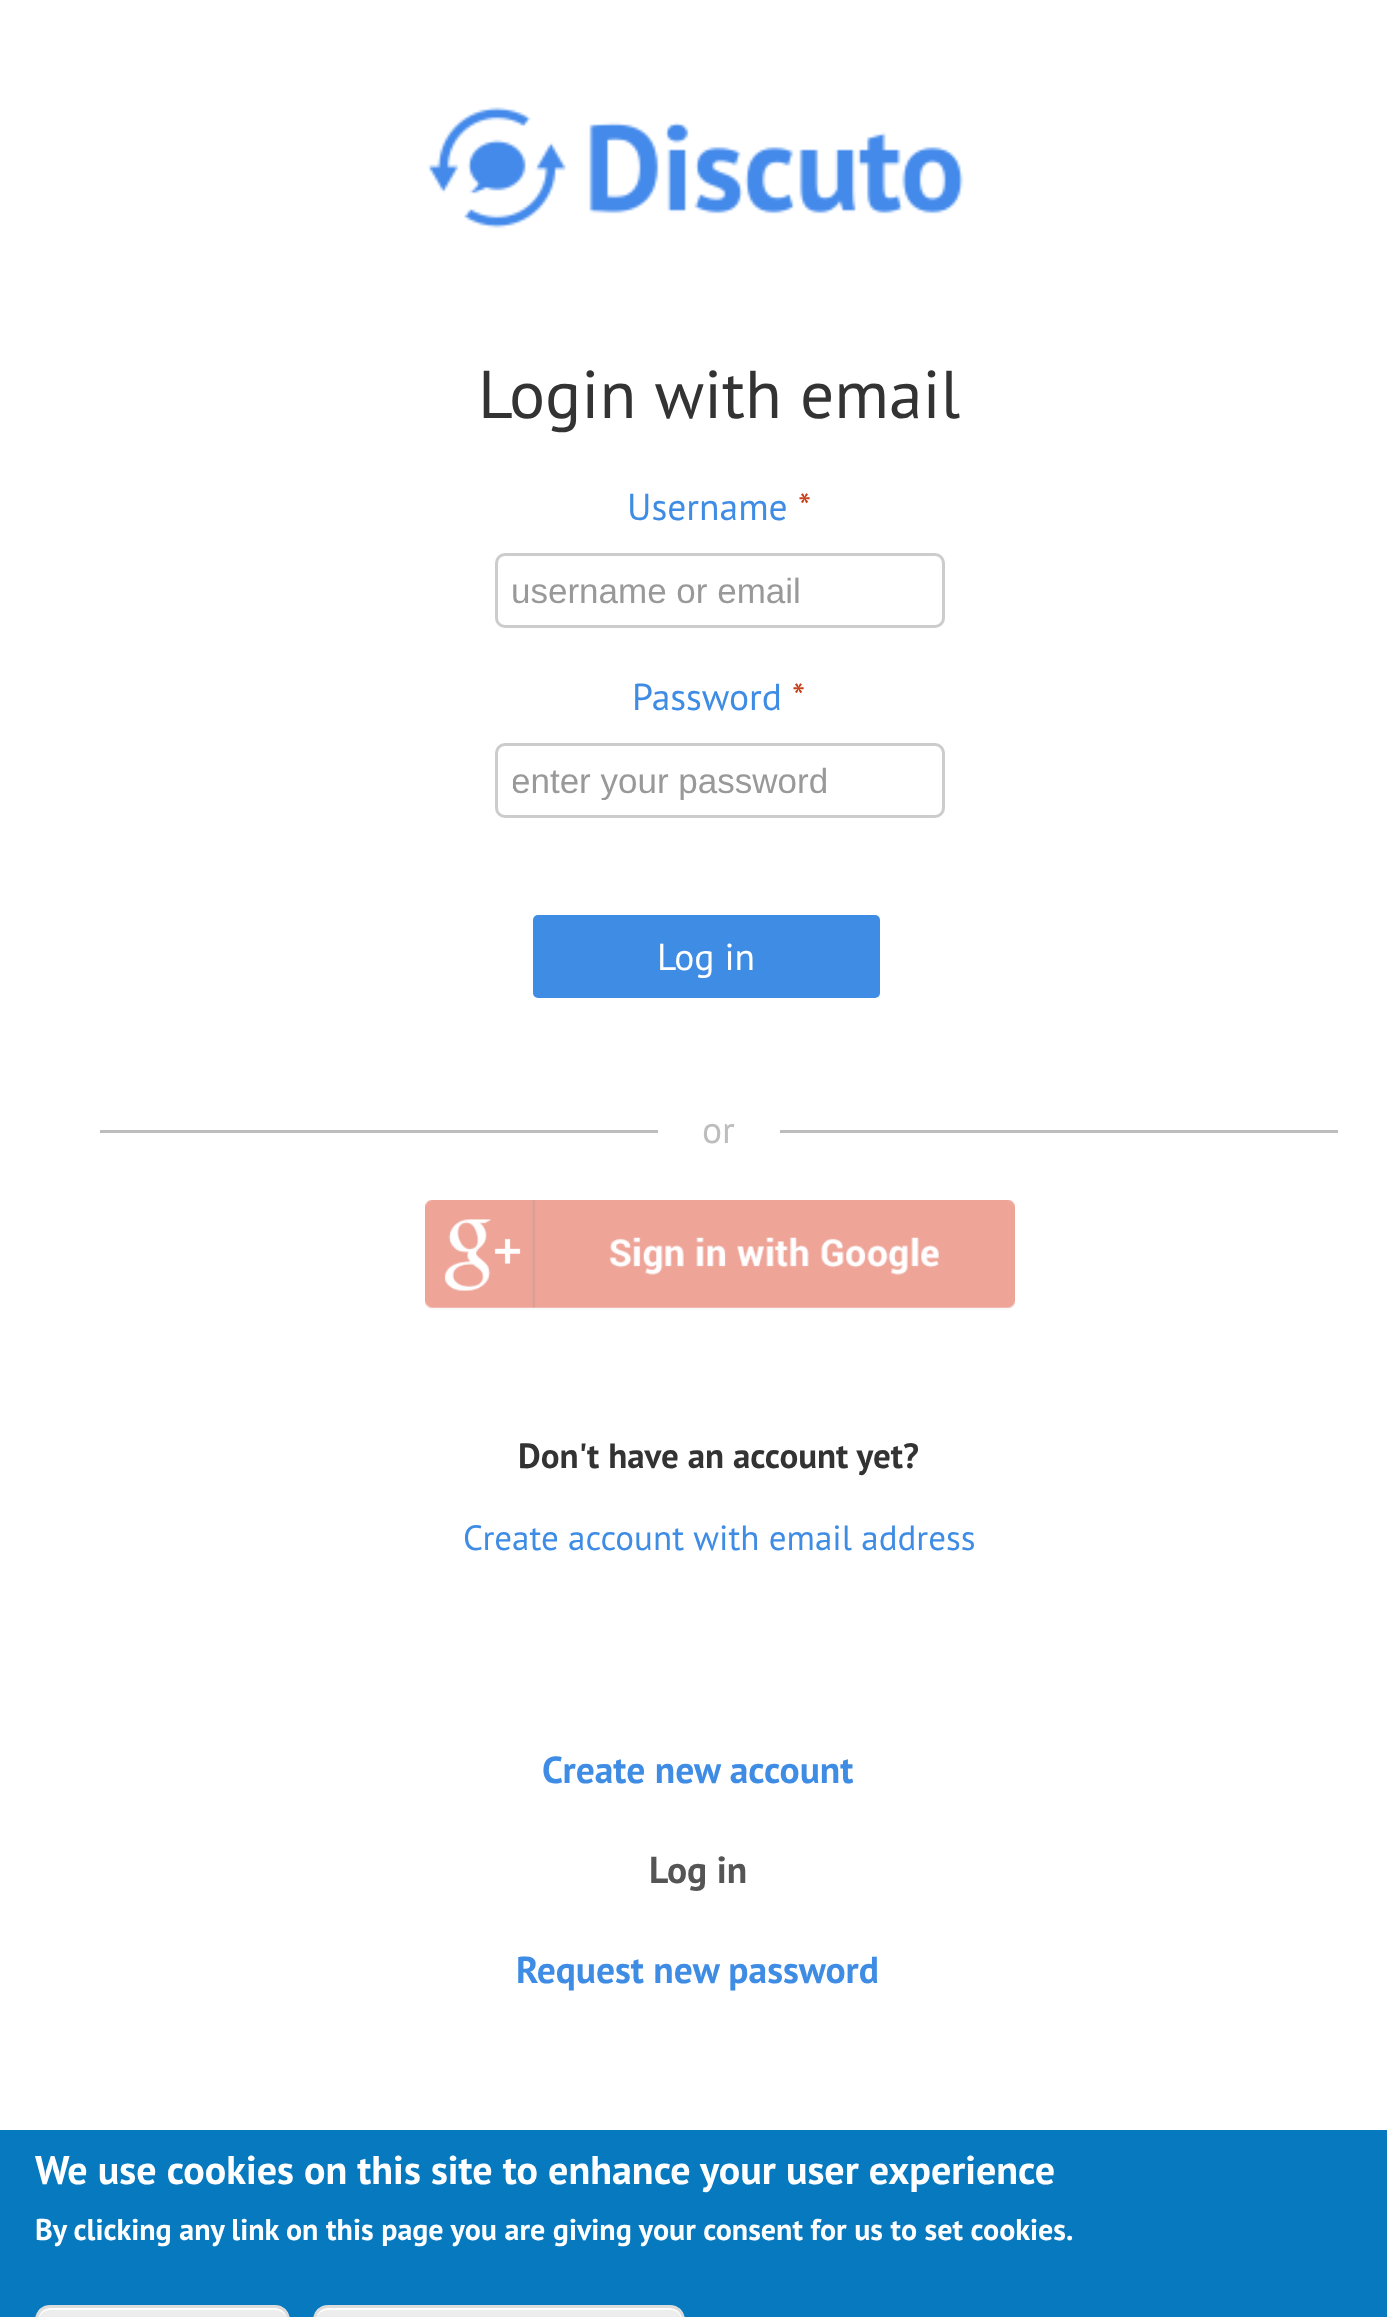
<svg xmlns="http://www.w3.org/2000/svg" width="1387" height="2317">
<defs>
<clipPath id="clip1"><rect x="513" y="760" width="415" height="40"/></clipPath>
<clipPath id="clip2"><rect x="35" y="2305" width="255" height="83" rx="15"/></clipPath>
<linearGradient id="g1" gradientUnits="userSpaceOnUse" x1="163" y1="2308" x2="163" y2="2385"><stop offset="0.05" stop-color="#ededed"/><stop offset="1" stop-color="#dfdfdf"/></linearGradient>
<clipPath id="clip3"><rect x="313" y="2305" width="372" height="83" rx="15"/></clipPath>
<linearGradient id="g2" gradientUnits="userSpaceOnUse" x1="499" y1="2308" x2="499" y2="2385"><stop offset="0.05" stop-color="#ededed"/><stop offset="1" stop-color="#dfdfdf"/></linearGradient>
</defs>
<rect width="100%" height="100%" fill="#fff"/>
<image x="427" y="107" width="537" height="122" href="media/1.png"/>
<text x="478" y="418" style="font-family:PT Sans;font-size:67.5px;fill:#333">Login with email</text>
<text x="627" y="520" style="font-family:PT Sans;font-size:37.5px;fill:#3f8ce4">Username</text>
<text x="798" y="520" style="font-family:PT Sans;font-size:37.5px;fill:#c83f19">*</text>
<rect x="496.5" y="554.5" width="447" height="72" rx="8.5" fill="none" stroke="#ccc" stroke-width="3"/>
<text x="511" y="603" style="font-family:Liberation Sans;font-size:35px;fill:#999">username or email</text>
<text x="632" y="710" style="font-family:PT Sans;font-size:37.5px;fill:#3f8ce4">Password</text>
<text x="792" y="710" style="font-family:PT Sans;font-size:37.5px;fill:#c83f19">*</text>
<rect x="496.5" y="744.5" width="447" height="72" rx="8.5" fill="none" stroke="#ccc" stroke-width="3"/>
<g clip-path="url(#clip1)">
<text x="511" y="793" style="font-family:Liberation Sans;font-size:35px;fill:#999">enter your password</text>
</g>
<rect x="533" y="915" width="347" height="83" rx="5" fill="#3f8ce4"/>
<text x="657" y="970" style="font-family:PT Sans;font-size:37.5px;fill:#fff">Log in</text>
<rect x="100" y="1130" width="558" height="3" fill="#bdbdbd"/>
<text x="702" y="1143" style="font-family:PT Sans;font-size:37.5px;fill:#bdbdbd">or</text>
<rect x="780" y="1130" width="558" height="3" fill="#bdbdbd"/>
<image x="425" y="1200" width="590" height="110" href="media/2.png"/>
<text x="518" y="1468" style="font-family:PT Sans;font-size:35px;font-weight:bold;fill:#333">Don't have an account yet?</text>
<text x="463" y="1550" style="font-family:PT Sans;font-size:35px;fill:#3f8ce4">Create account with email address</text>
<text x="542" y="1783" style="font-family:PT Sans;font-size:37.5px;font-weight:bold;fill:#3f8ce4">Create new account</text>
<text x="649" y="1883" style="font-family:PT Sans;font-size:37.5px;font-weight:bold;fill:#555">Log in</text>
<text x="516" y="1983" style="font-family:PT Sans;font-size:37.5px;font-weight:bold;fill:#3f8ce4">Request new password</text>
<rect y="2130" width="1387" height="187" fill="#0779bf"/>
<text x="35" y="2184" style="font-family:PT Sans;font-size:40px;font-weight:bold;fill:#fff">We use cookies on this site to enhance your user experience</text>
<text x="35" y="2240" style="font-family:PT Sans;font-size:30px;font-weight:bold;fill:#fff">By clicking any link on this page you are giving your consent for us to set cookies.</text>
<g clip-path="url(#clip2)">
<rect x="38" y="2308" width="250" height="9" fill="url(#g1)"/>
</g>
<path d="M50 2310h225c7 0 13 6 13 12v-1c0-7-6-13-13-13h-224c-7 0-13 6-13 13v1c0-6 5-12 12-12z" fill="#fff"/>
<rect x="36.5" y="2306.5" width="252" height="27" rx="13.5" fill="none" stroke="#dcdcdc" stroke-width="3"/>
<g clip-path="url(#clip3)">
<rect x="315" y="2308" width="368" height="9" fill="url(#g2)"/>
</g>
<path d="M328 2310h342c16 0 12 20 12 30v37c1-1 1-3 1-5v-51c0-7-6-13-13-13h-342c-7 0-13 6-13 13v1c0-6 6-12 13-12z" fill="#fff"/>
<rect x="314.5" y="2306.5" width="369" height="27" rx="13.5" fill="none" stroke="#dcdcdc" stroke-width="3"/>
</svg>
